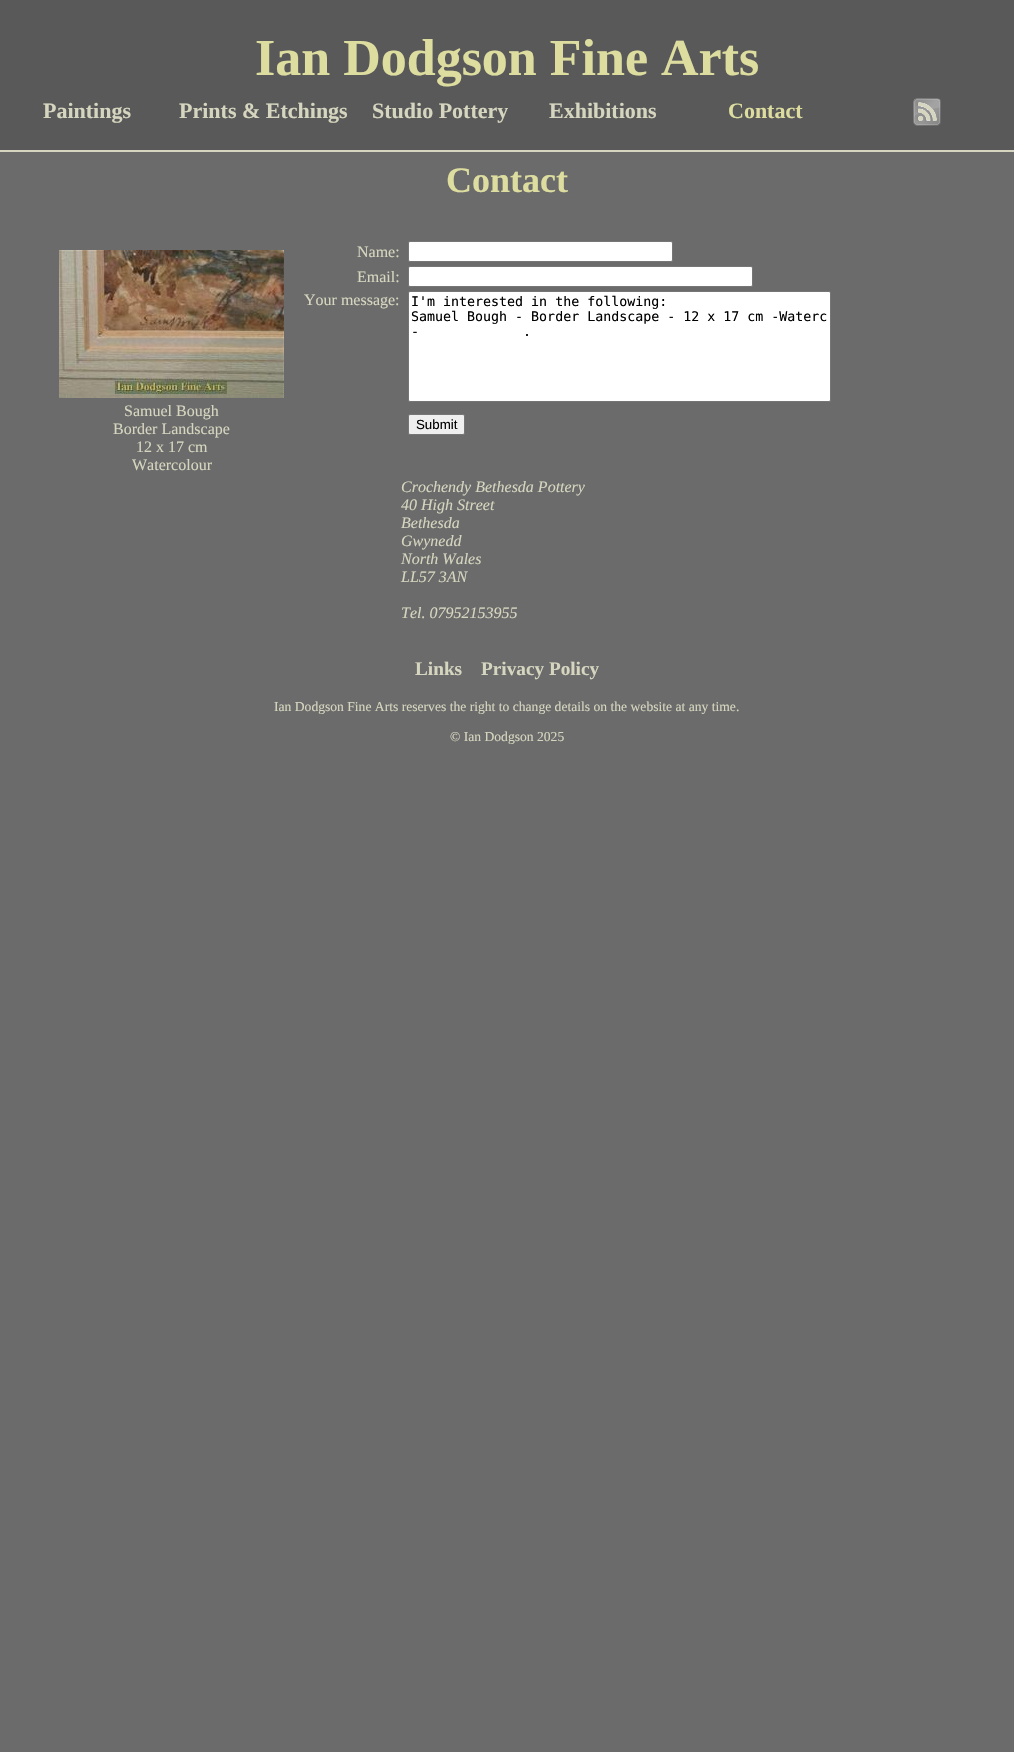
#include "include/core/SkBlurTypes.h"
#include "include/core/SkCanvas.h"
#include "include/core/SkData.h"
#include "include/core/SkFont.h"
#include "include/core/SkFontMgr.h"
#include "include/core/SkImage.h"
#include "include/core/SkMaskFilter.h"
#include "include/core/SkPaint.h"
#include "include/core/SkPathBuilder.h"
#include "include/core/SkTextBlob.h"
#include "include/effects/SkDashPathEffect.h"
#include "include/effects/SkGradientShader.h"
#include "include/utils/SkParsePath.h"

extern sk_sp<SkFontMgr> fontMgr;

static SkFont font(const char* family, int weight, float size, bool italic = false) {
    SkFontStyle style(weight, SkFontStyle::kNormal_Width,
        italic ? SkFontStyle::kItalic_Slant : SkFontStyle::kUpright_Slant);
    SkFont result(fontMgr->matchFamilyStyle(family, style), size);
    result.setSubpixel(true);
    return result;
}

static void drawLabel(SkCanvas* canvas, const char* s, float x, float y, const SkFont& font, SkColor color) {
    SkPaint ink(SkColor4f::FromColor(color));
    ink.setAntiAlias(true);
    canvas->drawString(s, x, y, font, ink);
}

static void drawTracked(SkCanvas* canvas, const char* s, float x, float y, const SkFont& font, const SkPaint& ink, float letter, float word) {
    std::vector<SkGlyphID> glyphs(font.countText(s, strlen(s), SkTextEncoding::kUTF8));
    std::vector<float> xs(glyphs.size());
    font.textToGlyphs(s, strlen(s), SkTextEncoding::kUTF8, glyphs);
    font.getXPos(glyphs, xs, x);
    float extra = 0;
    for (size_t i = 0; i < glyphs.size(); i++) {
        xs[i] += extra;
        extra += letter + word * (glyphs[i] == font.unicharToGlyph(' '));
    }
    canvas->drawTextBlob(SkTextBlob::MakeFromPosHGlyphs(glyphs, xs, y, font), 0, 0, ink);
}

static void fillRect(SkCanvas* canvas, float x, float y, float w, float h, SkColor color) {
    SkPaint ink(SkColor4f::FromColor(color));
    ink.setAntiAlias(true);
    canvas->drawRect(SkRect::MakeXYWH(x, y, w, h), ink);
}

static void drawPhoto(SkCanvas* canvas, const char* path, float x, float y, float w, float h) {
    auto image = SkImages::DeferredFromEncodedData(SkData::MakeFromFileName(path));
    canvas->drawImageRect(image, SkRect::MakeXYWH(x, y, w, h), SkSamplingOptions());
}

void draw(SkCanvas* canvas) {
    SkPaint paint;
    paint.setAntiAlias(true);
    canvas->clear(0xFF6B6B6B);
    fillRect(canvas, 0, 0, 1014, 150, 0xFF595959);
    fillRect(canvas, 0, 150, 1014, 2, 0xFFD6D6C0);
    SkFont font1 = font("Liberation Serif", 700, 52);
    drawLabel(canvas, "Ian Dodgson Fine Arts", 255, 75, font1, 0xFFDDDDA0);
    SkFont font2 = font("Liberation Serif", 700, 22);
    drawLabel(canvas, "Paintings", 43, 118, font2, 0xFFD6D6C0);
    drawLabel(canvas, "Prints & Etchings", 179, 118, font2, 0xFFD6D6C0);
    drawLabel(canvas, "Studio Pottery", 372, 118, font2, 0xFFD6D6C0);
    drawLabel(canvas, "Exhibitions", 549, 118, font2, 0xFFD6D6C0);
    drawLabel(canvas, "Contact", 728, 118, font2, 0xFFDDDDA0);
    drawPhoto(canvas, "assets/img1.png", 913, 98, 28, 28);
    SkFont font3 = font("Liberation Serif", 700, 36);
    drawLabel(canvas, "Contact", 446, 192, font3, 0xFFDDDDA0);
    drawPhoto(canvas, "assets/img2.png", 59, 250, 225, 148);
    SkFont font4 = font("Liberation Serif", 400, 16);
    drawLabel(canvas, "Samuel Bough", 124, 416, font4, 0xFFD6D6C0);
    drawLabel(canvas, "Border Landscape", 113, 434, font4, 0xFFD6D6C0);
    drawLabel(canvas, "12 x 17 cm", 136, 452, font4, 0xFFD6D6C0);
    drawLabel(canvas, "Watercolour", 132, 470, font4, 0xFFD6D6C0);
    drawLabel(canvas, "Name:", 357, 257, font4, 0xFFD6D6C0);
    paint.setColor(0xFFFFFFFF);
    canvas->drawRoundRect(SkRect::MakeXYWH(408.5f, 241.5f, 264, 20), 1.5f, 1.5f, paint);
    paint.setStroke(true);
    paint.setStrokeWidth(1);
    paint.setColor(0xFF767676);
    canvas->drawRoundRect(SkRect::MakeXYWH(408.5f, 241.5f, 264, 20), 1.5f, 1.5f, paint);
    drawLabel(canvas, "Email:", 357, 282, font4, 0xFFD6D6C0);
    paint.setStroke(false);
    paint.setColor(0xFFFFFFFF);
    canvas->drawRoundRect(SkRect::MakeXYWH(408.5f, 266.5f, 344, 20), 1.5f, 1.5f, paint);
    paint.setStroke(true);
    paint.setColor(0xFF767676);
    canvas->drawRoundRect(SkRect::MakeXYWH(408.5f, 266.5f, 344, 20), 1.5f, 1.5f, paint);
    drawLabel(canvas, "Your message:", 304, 305, font4, 0xFFD6D6C0);
    paint.setStroke(false);
    paint.setColor(0xFFFFFFFF);
    canvas->drawRoundRect(SkRect::MakeXYWH(408.5f, 291.5f, 422, 110), 1.5f, 1.5f, paint);
    paint.setStroke(true);
    paint.setColor(0xFF767676);
    canvas->drawRoundRect(SkRect::MakeXYWH(408.5f, 291.5f, 422, 110), 1.5f, 1.5f, paint);
    SkFont font5 = font("DejaVu Sans Mono", 400, 13.3f);
    drawLabel(canvas, "I'm interested in the following:", 411, 306, font5, 0xFF000000);
    drawLabel(canvas, "Samuel Bough - Border Landscape - 12 x 17 cm -Waterc", 411, 321, font5, 0xFF000000);
    paint.setStroke(false);
    paint.setColor(0xFF000000);
    drawTracked(canvas, "- .", 411, 336, font5, paint, 0, 96);
    paint.setColor(0xFFEFEFEF);
    canvas->drawRoundRect(SkRect::MakeXYWH(408.5f, 414.5f, 56, 20), 1.5f, 1.5f, paint);
    paint.setStroke(true);
    paint.setColor(0xFF767676);
    canvas->drawRoundRect(SkRect::MakeXYWH(408.5f, 414.5f, 56, 20), 1.5f, 1.5f, paint);
    SkFont font6 = font("Liberation Sans", 400, 13.3f);
    drawLabel(canvas, "Submit", 416, 429, font6, 0xFF000000);
    SkFont font7 = font("Liberation Serif", 400, 16, true);
    drawLabel(canvas, "Crochendy Bethesda Pottery", 401, 492, font7, 0xFFD6D6C0);
    drawLabel(canvas, "40 High Street", 401, 510, font7, 0xFFD6D6C0);
    drawLabel(canvas, "Bethesda", 401, 528, font7, 0xFFD6D6C0);
    drawLabel(canvas, "Gwynedd", 401, 546, font7, 0xFFD6D6C0);
    drawLabel(canvas, "North Wales", 401, 564, font7, 0xFFD6D6C0);
    drawLabel(canvas, "LL57 3AN", 401, 582, font7, 0xFFD6D6C0);
    drawLabel(canvas, "Tel. 07952153955", 401, 618, font7, 0xFFD6D6C0);
    SkFont font8 = font("Liberation Serif", 700, 19.25f);
    drawLabel(canvas, "Links", 415, 675, font8, 0xFFD6D6C0);
    drawLabel(canvas, "Privacy Policy", 481, 675, font8, 0xFFD6D6C0);
    SkFont font9 = font("Liberation Serif", 400, 13.6f);
    drawLabel(canvas, "Ian Dodgson Fine Arts reserves the right to change details on the website at any time.", 274, 711, font9, 0xFFD6D6C0);
    drawLabel(canvas, "© Ian Dodgson 2025", 450, 741, font9, 0xFFD6D6C0);
}
